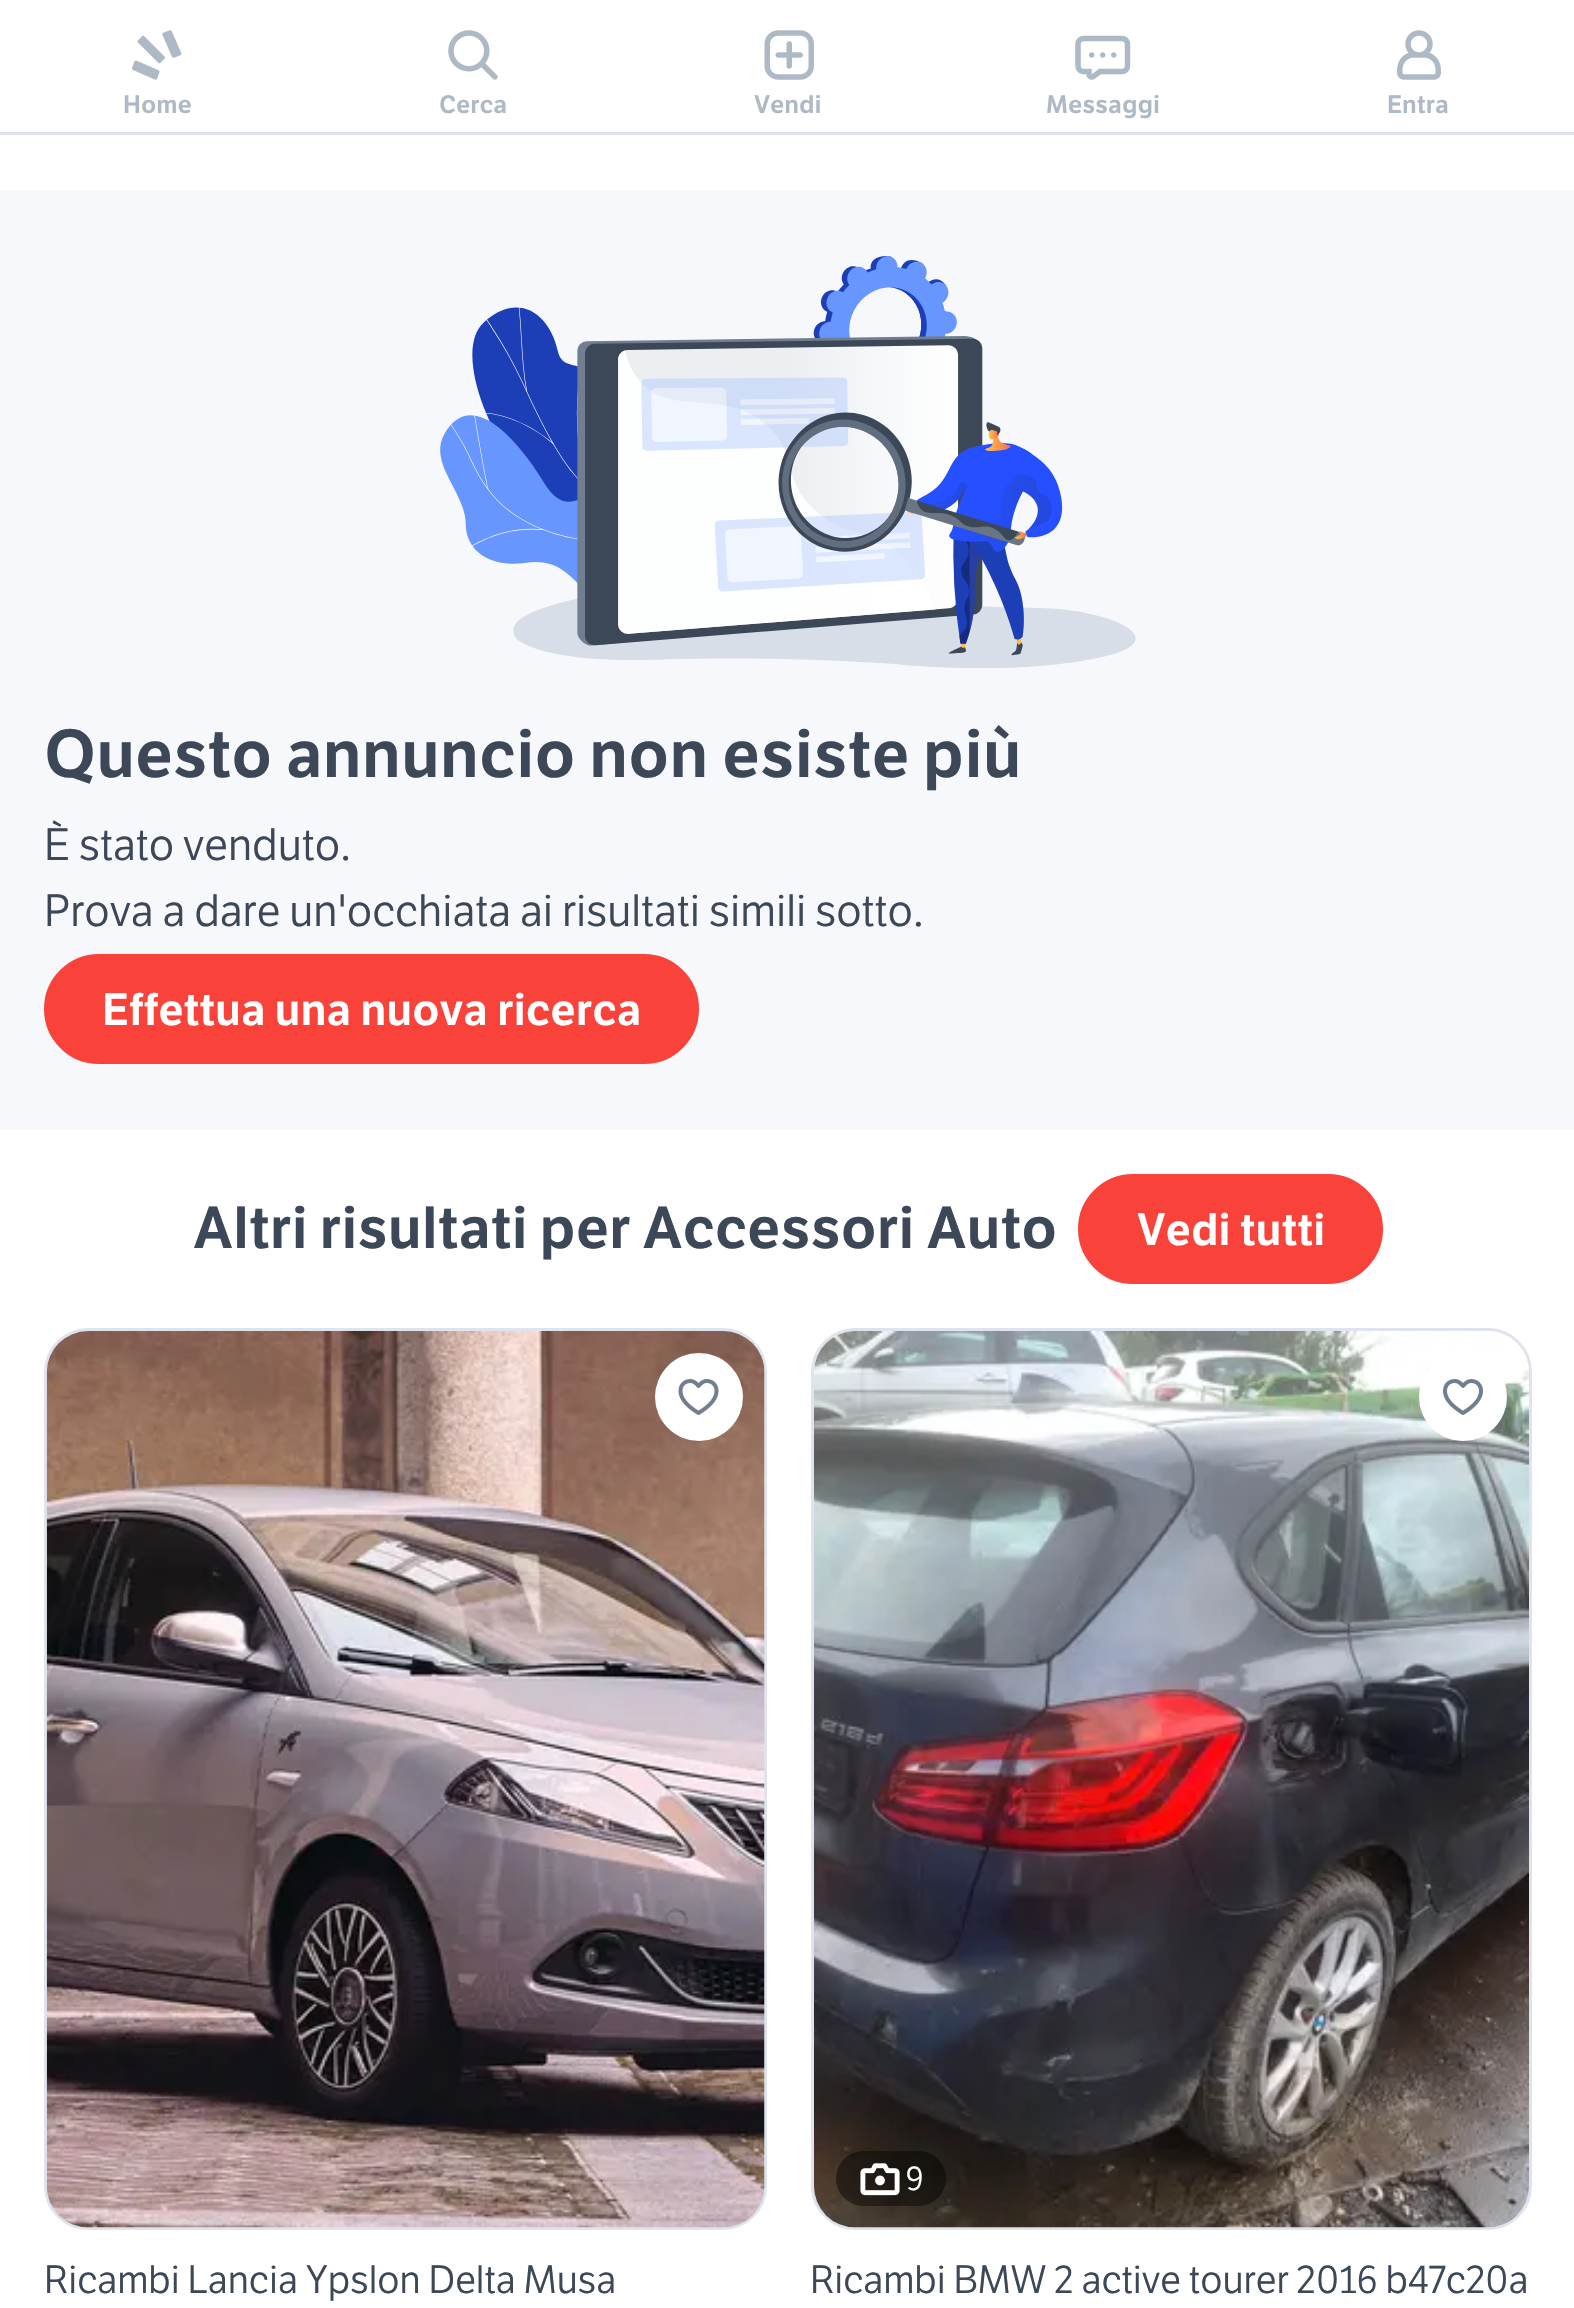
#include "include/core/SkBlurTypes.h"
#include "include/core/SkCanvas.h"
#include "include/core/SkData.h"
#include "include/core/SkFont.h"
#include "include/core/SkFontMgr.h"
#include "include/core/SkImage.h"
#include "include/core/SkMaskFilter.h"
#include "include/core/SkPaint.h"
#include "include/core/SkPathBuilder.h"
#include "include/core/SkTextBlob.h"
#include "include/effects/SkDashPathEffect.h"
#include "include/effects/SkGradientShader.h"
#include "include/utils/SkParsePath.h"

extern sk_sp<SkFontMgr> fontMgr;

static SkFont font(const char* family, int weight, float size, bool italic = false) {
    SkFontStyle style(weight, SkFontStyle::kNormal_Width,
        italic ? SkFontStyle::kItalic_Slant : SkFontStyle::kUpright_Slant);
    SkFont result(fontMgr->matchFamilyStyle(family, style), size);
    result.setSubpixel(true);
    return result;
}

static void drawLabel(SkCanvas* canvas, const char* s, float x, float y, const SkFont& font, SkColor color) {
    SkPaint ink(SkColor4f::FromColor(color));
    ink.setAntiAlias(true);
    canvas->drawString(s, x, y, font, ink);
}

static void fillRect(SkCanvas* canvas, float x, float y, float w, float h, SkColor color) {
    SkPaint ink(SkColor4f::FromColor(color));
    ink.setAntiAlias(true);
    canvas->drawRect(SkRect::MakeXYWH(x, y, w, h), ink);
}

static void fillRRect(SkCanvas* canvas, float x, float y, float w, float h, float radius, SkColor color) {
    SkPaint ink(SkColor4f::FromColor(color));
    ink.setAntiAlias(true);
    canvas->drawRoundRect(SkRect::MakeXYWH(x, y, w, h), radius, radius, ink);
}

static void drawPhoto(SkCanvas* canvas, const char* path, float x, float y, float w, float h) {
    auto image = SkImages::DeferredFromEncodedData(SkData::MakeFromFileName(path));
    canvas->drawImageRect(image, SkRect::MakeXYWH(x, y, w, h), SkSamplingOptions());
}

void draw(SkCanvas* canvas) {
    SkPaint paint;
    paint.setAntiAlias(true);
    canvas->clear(0xFFFFFFFF);
    fillRect(canvas, 0, 132, 1574, 3, 0xFFDFE3ED);
    drawPhoto(canvas, "assets/img1.png", 132, 30, 50, 50);
    SkFont font1 = font("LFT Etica", 600, 24.75f);
    drawLabel(canvas, "Home", 123, 113, font1, 0xFFAEB9C6);
    drawPhoto(canvas, "assets/img2.png", 448, 30, 50, 50);
    drawLabel(canvas, "Cerca", 439, 113, font1, 0xFFAEB9C6);
    drawPhoto(canvas, "assets/img3.png", 764, 30, 50, 50);
    drawLabel(canvas, "Vendi", 754, 113, font1, 0xFFAEB9C6);
    drawPhoto(canvas, "assets/img4.png", 1075, 35, 56, 45);
    drawLabel(canvas, "Messaggi", 1046, 113, font1, 0xFFAEB9C6);
    drawPhoto(canvas, "assets/img5.png", 1397, 30, 44, 50);
    drawLabel(canvas, "Entra", 1387, 113, font1, 0xFFAEB9C6);
    fillRect(canvas, 0, 190, 1574, 940, 0xFFF7F8FB);
    drawPhoto(canvas, "assets/img6.png", 440, 256, 696, 412);
    SkFont font2 = font("LFT Etica", 600, 66);
    drawLabel(canvas, "Questo annuncio non esiste più", 44, 777, font2, 0xFF3C4858);
    SkFont font3 = font("LFT Etica", 400, 44);
    drawLabel(canvas, "È stato venduto.", 44, 860, font3, 0xFF3C4858);
    drawLabel(canvas, "Prova a dare un'occhiata ai risultati simili sotto.", 44, 926, font3, 0xFF3C4858);
    paint.setColor(0xFFF9423A);
    canvas->drawRoundRect(SkRect::MakeXYWH(45.5f, 955.5f, 652, 107), 53.5f, 53.5f, paint);
    paint.setStroke(true);
    paint.setStrokeWidth(3);
    canvas->drawRoundRect(SkRect::MakeXYWH(45.5f, 955.5f, 652, 107), 53.5f, 53.5f, paint);
    SkFont font4 = font("LFT Etica", 600, 44);
    drawLabel(canvas, "Effettua una nuova ricerca", 102, 1025, font4, 0xFFFFFFFF);
    SkFont font5 = font("LFT Etica", 600, 57.75f);
    drawLabel(canvas, "Altri risultati per Accessori Auto", 193, 1248, font5, 0xFF3C4858);
    paint.setStroke(false);
    canvas->drawRoundRect(SkRect::MakeXYWH(1079.5f, 1175.5f, 302, 107), 53.5f, 53.5f, paint);
    paint.setStroke(true);
    canvas->drawRoundRect(SkRect::MakeXYWH(1079.5f, 1175.5f, 302, 107), 53.5f, 53.5f, paint);
    drawLabel(canvas, "Vedi tutti", 1137, 1245, font4, 0xFFFFFFFF);
    paint.setStroke(false);
    paint.setColor(0xFFF7F8FB);
    canvas->drawRoundRect(SkRect::MakeXYWH(45.5f, 1329.5f, 720, 899), 42.5f, 42.5f, paint);
    paint.setStroke(true);
    paint.setColor(0xFFDFE3ED);
    canvas->drawRoundRect(SkRect::MakeXYWH(45.5f, 1329.5f, 720, 899), 42.5f, 42.5f, paint);
    drawPhoto(canvas, "assets/img7.png", 46, 1331, 719, 897);
    paint.setStroke(false);
    paint.setColor(0xFFFFFFFF);
    canvas->drawCircle(699, 1397, 44, paint);
    drawPhoto(canvas, "assets/img8.png", 678, 1379, 41, 36);
    SkFont font6 = font("LFT Etica", 400, 38.5f);
    drawLabel(canvas, "Ricambi Lancia Ypslon Delta Musa", 44, 2293, font6, 0xFF3C4858);
    paint.setColor(0xFFF7F8FB);
    canvas->drawRoundRect(SkRect::MakeXYWH(812.5f, 1329.5f, 718, 899), 42.5f, 42.5f, paint);
    paint.setStroke(true);
    paint.setColor(0xFFDFE3ED);
    canvas->drawRoundRect(SkRect::MakeXYWH(812.5f, 1329.5f, 718, 899), 42.5f, 42.5f, paint);
    drawPhoto(canvas, "assets/img9.png", 814, 1331, 715, 897);
    paint.setStroke(false);
    paint.setColor(0xFFFFFFFF);
    canvas->drawCircle(1463, 1397, 44, paint);
    drawPhoto(canvas, "assets/img10.png", 1443, 1379, 40, 36);
    fillRRect(canvas, 836, 2151, 110, 55, 27.5f, 0x73000000);
    drawPhoto(canvas, "assets/img11.png", 860, 2163, 40, 33);
    SkFont font7 = font("LFT Etica", 400, 33);
    drawLabel(canvas, "9", 906, 2190, font7, 0xFFFFFFFF);
    drawLabel(canvas, "Ricambi BMW 2 active tourer 2016 b47c20a", 810, 2293, font6, 0xFF3C4858);
}
